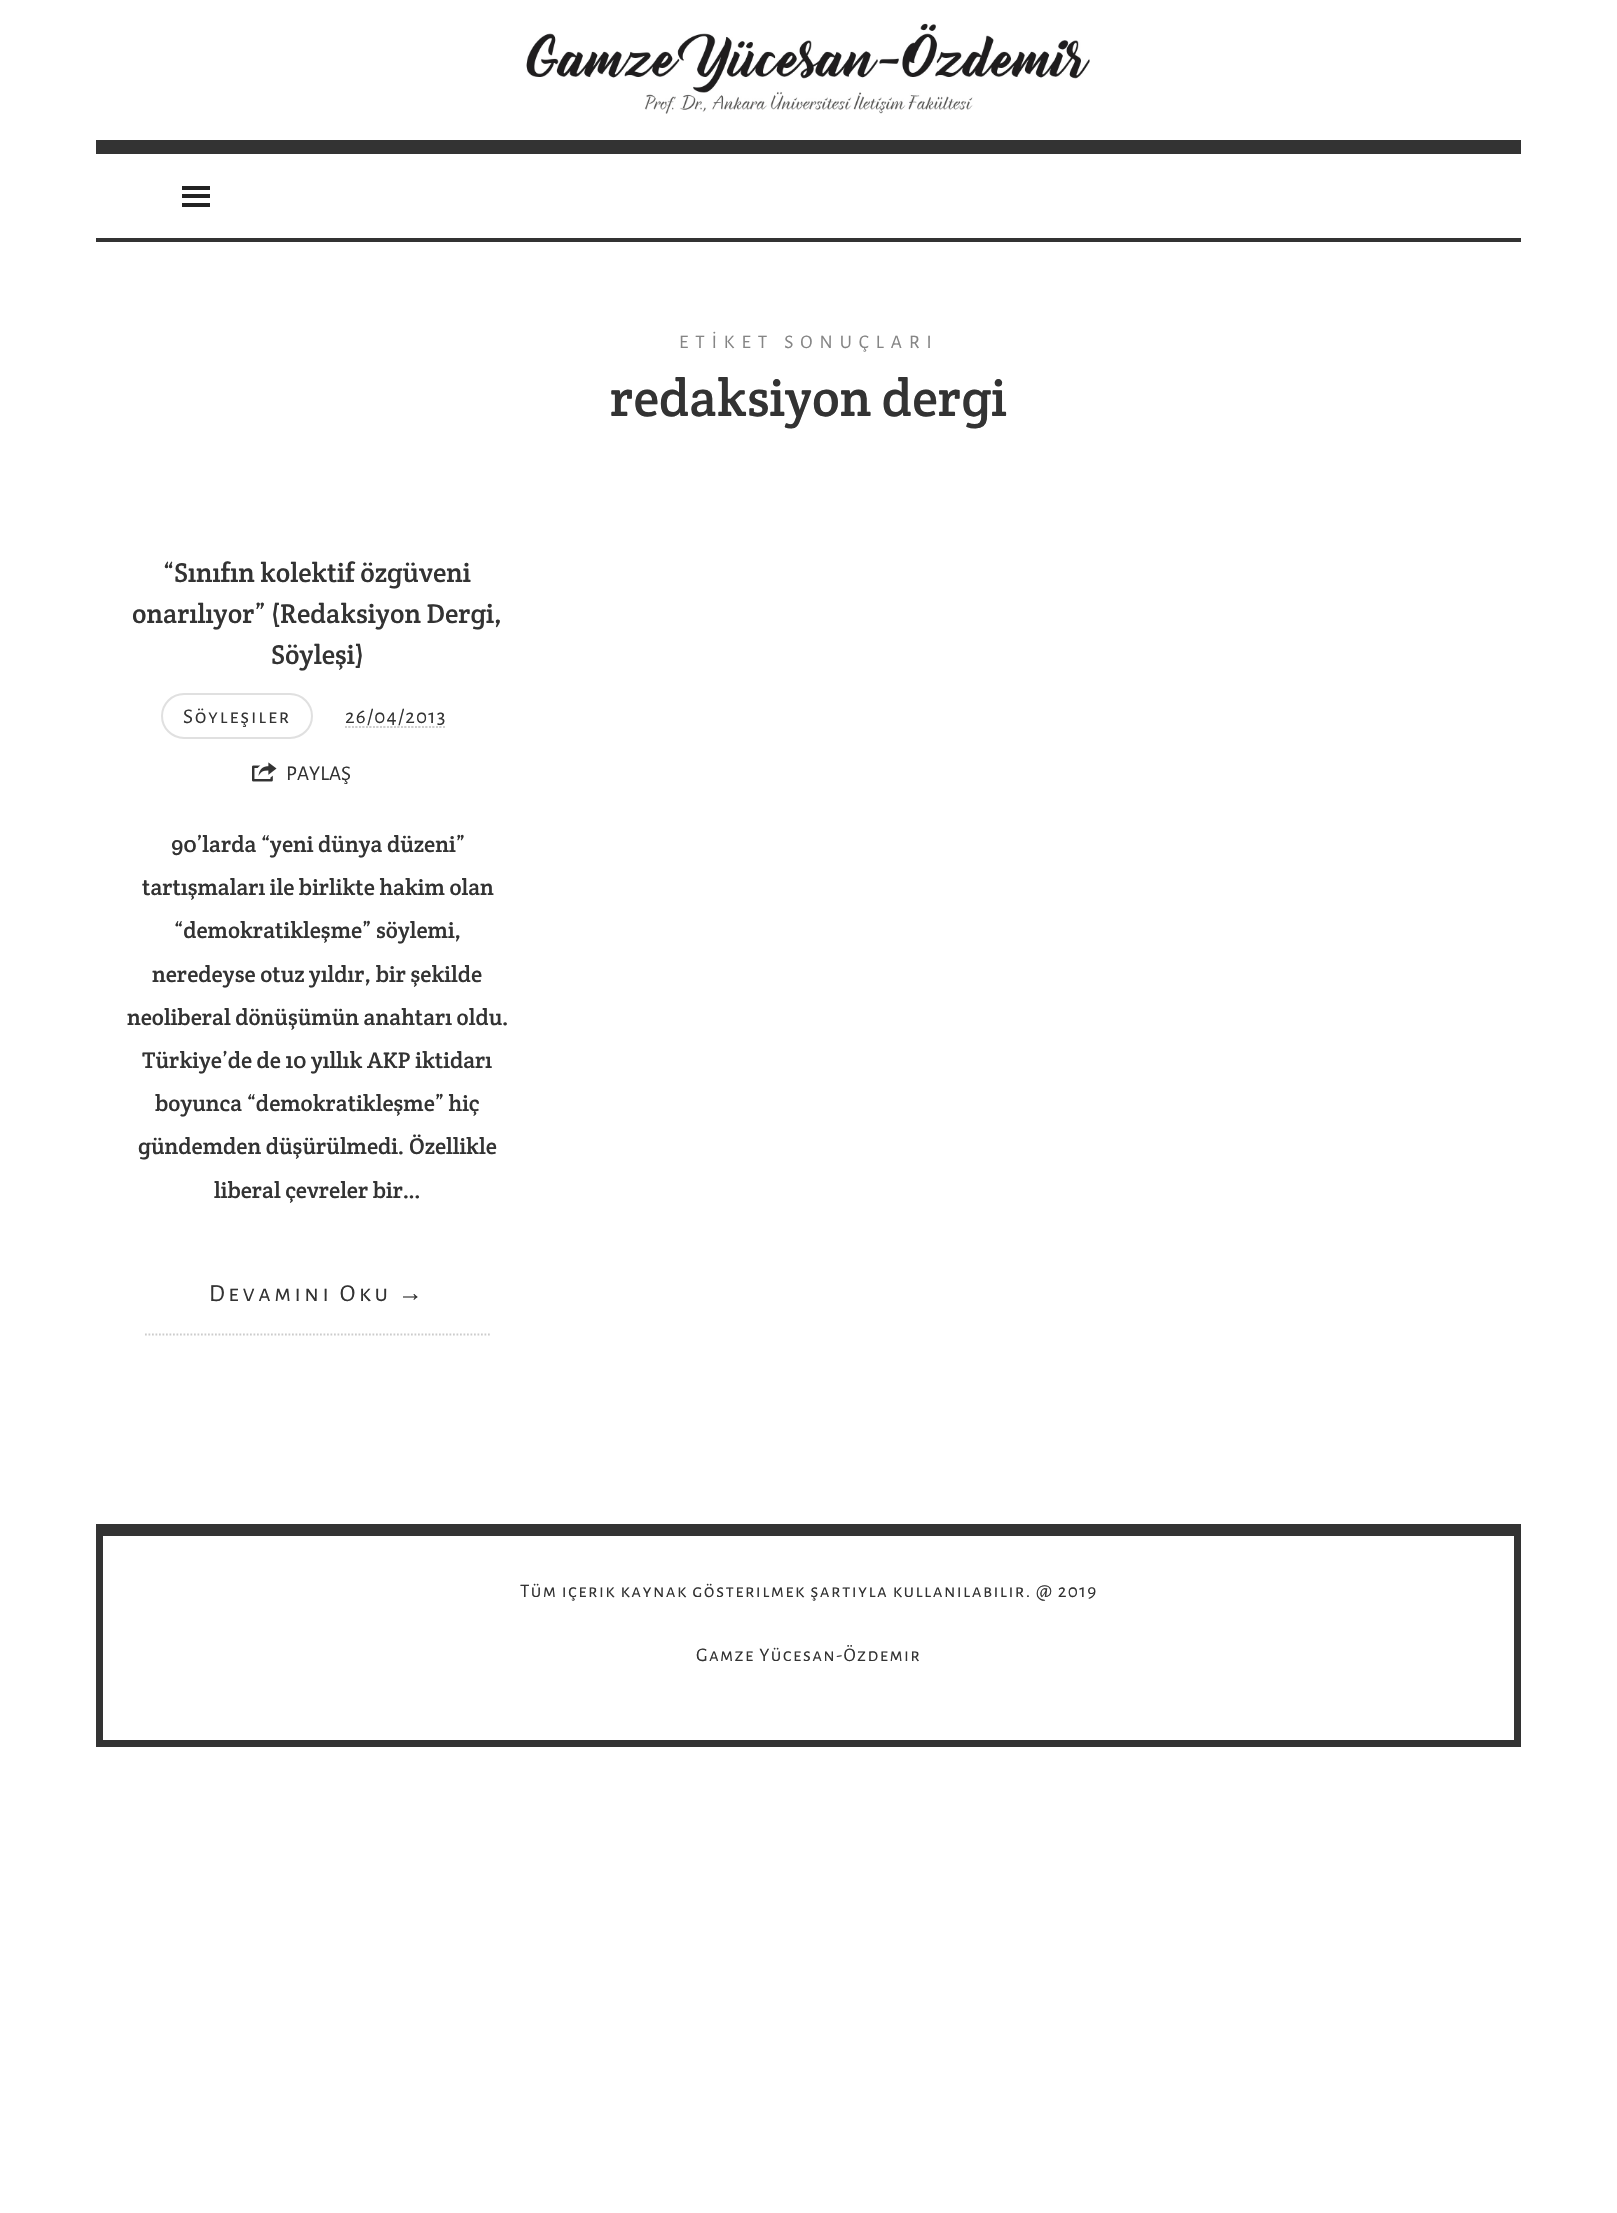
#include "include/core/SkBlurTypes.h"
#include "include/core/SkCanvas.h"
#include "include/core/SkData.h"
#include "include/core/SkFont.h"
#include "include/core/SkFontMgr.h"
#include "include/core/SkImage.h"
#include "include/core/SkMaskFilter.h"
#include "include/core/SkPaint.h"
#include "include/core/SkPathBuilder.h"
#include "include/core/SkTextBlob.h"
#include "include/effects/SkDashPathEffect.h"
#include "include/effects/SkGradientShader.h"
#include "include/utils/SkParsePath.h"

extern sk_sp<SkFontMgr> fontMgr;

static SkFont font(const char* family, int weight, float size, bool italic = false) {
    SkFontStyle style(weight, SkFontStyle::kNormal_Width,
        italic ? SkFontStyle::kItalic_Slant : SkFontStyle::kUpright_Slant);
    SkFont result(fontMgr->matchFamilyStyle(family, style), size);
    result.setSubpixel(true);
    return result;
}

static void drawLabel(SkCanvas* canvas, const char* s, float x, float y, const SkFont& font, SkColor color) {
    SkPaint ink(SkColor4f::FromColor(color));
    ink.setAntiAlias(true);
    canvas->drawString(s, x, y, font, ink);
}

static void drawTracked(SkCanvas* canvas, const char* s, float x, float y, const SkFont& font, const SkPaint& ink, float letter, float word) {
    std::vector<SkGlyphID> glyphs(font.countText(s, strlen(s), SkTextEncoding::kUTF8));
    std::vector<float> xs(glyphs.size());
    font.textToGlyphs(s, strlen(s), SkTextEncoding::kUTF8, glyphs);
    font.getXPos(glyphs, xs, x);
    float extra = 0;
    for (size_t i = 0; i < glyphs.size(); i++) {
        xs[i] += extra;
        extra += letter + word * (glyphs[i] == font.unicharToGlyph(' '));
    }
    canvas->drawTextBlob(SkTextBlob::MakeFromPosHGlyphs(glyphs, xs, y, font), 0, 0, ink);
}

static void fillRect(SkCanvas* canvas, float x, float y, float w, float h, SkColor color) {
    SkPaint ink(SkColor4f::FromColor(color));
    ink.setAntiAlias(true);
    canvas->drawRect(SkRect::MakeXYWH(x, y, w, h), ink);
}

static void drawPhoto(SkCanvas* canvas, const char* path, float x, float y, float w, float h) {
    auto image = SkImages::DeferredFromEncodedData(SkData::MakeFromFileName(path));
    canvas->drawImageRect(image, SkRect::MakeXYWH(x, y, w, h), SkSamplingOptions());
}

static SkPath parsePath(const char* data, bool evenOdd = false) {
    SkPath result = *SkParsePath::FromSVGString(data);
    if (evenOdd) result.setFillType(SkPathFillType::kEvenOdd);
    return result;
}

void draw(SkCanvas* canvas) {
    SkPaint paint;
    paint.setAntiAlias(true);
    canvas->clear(0xFFFFFFFF);
    drawPhoto(canvas, "assets/img1.png", 526, 23, 564, 91);
    fillRect(canvas, 96, 140, 1425, 14, 0xFF333333);
    fillRect(canvas, 96, 238, 1425, 4, 0xFF333333);
    fillRect(canvas, 182, 194, 28, 4, 0xFF222222);
    fillRect(canvas, 182, 186, 28, 4, 0xFF222222);
    fillRect(canvas, 182, 203, 28, 4, 0xFF222222);
    SkFont font1 = font("Alegreya Sans SC", 400, 19.25f);
    paint.setColor(0xFF858585);
    drawTracked(canvas, "ETİKET SONUÇLARI", 679, 348, font1, paint, 7, 0);
    SkFont font2 = font("Crete Round", 400, 52.25f);
    drawLabel(canvas, "redaksiyon dergi", 610, 416, font2, 0xFF333333);
    SkFont font3 = font("Crete Round", 400, 27.25f);
    drawLabel(canvas, "“Sınıfın kolektif özgüveni", 163, 582, font3, 0xFF333333);
    drawLabel(canvas, "onarılıyor” (Redaksiyon Dergi,", 132, 623, font3, 0xFF333333);
    drawLabel(canvas, "Söyleşi)", 271, 664, font3, 0xFF333333);
    paint.setStroke(true);
    paint.setStrokeWidth(2);
    paint.setColor(0xFFE0E0E0);
    canvas->drawRoundRect(SkRect::MakeXYWH(162, 694, 150, 44), 22, 22, paint);
    SkFont font4 = font("Alegreya Sans SC", 400, 21);
    paint.setStroke(false);
    paint.setColor(0xFF333333);
    drawTracked(canvas, "Söyleşiler", 183, 723, font4, paint, 1.75f, 0);
    drawTracked(canvas, "26/04/2013", 345, 723, font4, paint, 1.25f, 0);
    paint.setStroke(true);
    paint.setStrokeWidth(1.8f);
    paint.setColor(0xFFCCCCCC);
    paint.setPathEffect(SkDashPathEffect::Make({{1.75f, 1.75f}}, 0));
    canvas->drawPath(parsePath("M345 727H446"), paint);
    paint.setPathEffect(nullptr);
    paint.setPathEffect(SkDashPathEffect::Make({{1.75f, 1.75f}}, 0));
    canvas->drawPath(parsePath("M345 727H446"), paint);
    paint.setPathEffect(nullptr);
    drawPhoto(canvas, "assets/img2.png", 252, 762, 25, 20);
    drawLabel(canvas, "PAYLAŞ", 286, 780, font4, 0xFF333333);
    SkFont font5 = font("Crete Round", 400, 22.75f);
    drawLabel(canvas, "90’larda “yeni dünya düzeni”", 171, 852, font5, 0xFF333333);
    drawLabel(canvas, "tartışmaları ile birlikte hakim olan", 142, 895, font5, 0xFF333333);
    drawLabel(canvas, "“demokratikleşme” söylemi,", 174, 938, font5, 0xFF333333);
    drawLabel(canvas, "neredeyse otuz yıldır, bir şekilde", 152, 982, font5, 0xFF333333);
    drawLabel(canvas, "neoliberal dönüşümün anahtarı oldu.", 127, 1025, font5, 0xFF333333);
    drawLabel(canvas, "Türkiye’de de 10 yıllık AKP iktidarı", 142, 1068, font5, 0xFF333333);
    drawLabel(canvas, "boyunca “demokratikleşme” hiç", 155, 1111, font5, 0xFF333333);
    drawLabel(canvas, "gündemden düşürülmedi. Özellikle", 138, 1154, font5, 0xFF333333);
    drawLabel(canvas, "liberal çevreler bir…", 214, 1198, font5, 0xFF333333);
    paint.setPathEffect(SkDashPathEffect::Make({{1.75f, 1.75f}}, 0));
    canvas->drawPath(parsePath("M145 1334.5H490"), paint);
    paint.setPathEffect(nullptr);
    SkFont font6 = font("Alegreya Sans SC", 400, 24.5f);
    paint.setStroke(false);
    paint.setColor(0xFF333333);
    drawTracked(canvas, "Devamını Oku", 209, 1301, font6, paint, 3.5f, 0);
    SkFont font7 = font("Liberation Serif", 400, 24.5f);
    drawTracked(canvas, "→", 398, 1301, font7, paint, 3.5f, 0);
    paint.setStroke(true);
    paint.setStrokeWidth(7);
    canvas->drawRect(SkRect::MakeXYWH(99.5f, 1527.5f, 1418, 216), paint);
    fillRect(canvas, 103, 1531, 1411, 5, 0xFF333333);
    paint.setStroke(false);
    drawTracked(canvas, "Tüm içerik kaynak gösterilmek şartıyla kullanılabilir. @ 2019", 520, 1597, font1, paint, 1.35f, 0);
    drawTracked(canvas, "Gamze Yücesan-Özdemir", 696, 1661, font1, paint, 1.35f, 0);
}
